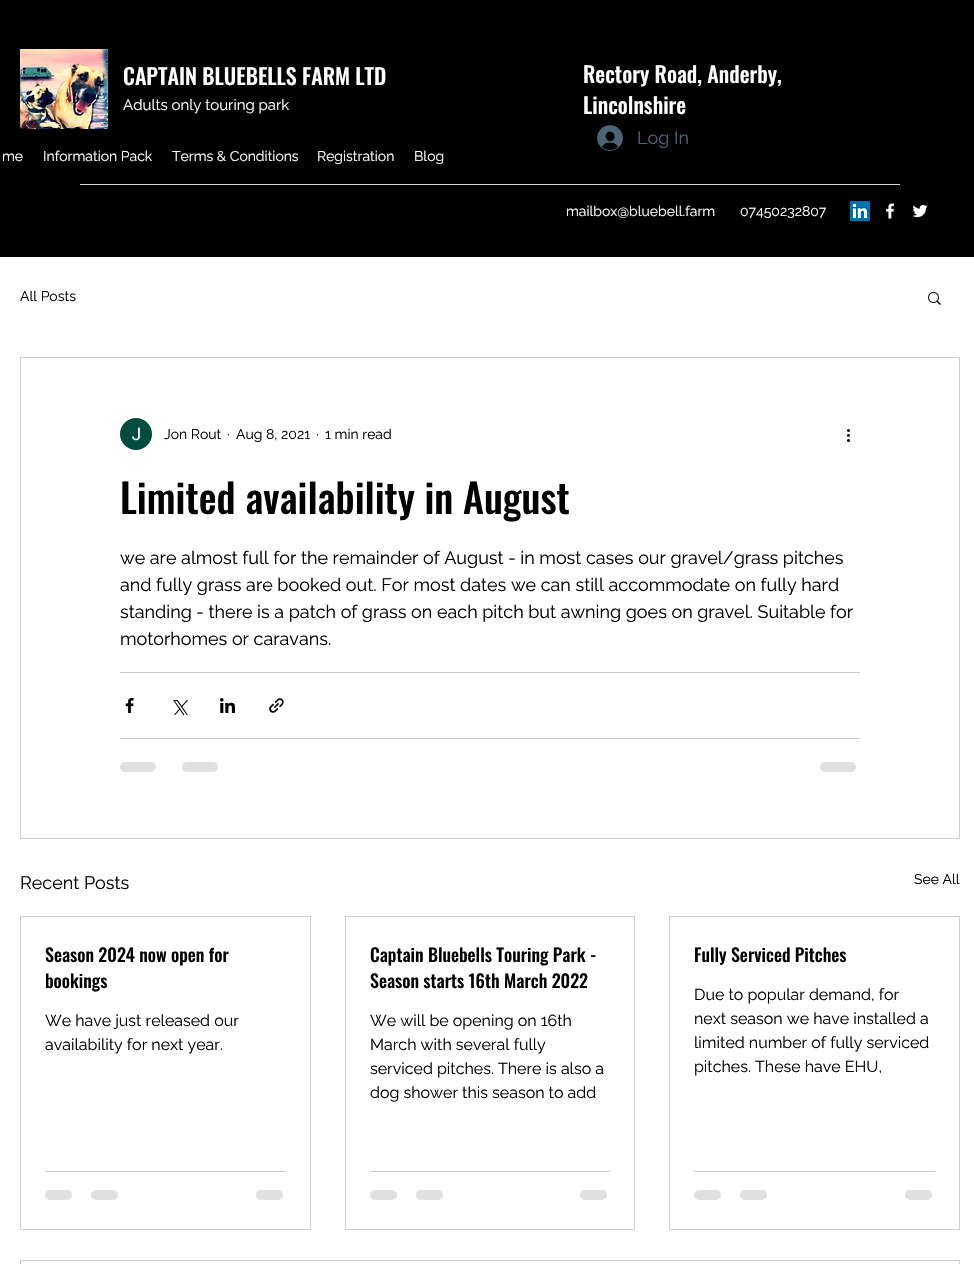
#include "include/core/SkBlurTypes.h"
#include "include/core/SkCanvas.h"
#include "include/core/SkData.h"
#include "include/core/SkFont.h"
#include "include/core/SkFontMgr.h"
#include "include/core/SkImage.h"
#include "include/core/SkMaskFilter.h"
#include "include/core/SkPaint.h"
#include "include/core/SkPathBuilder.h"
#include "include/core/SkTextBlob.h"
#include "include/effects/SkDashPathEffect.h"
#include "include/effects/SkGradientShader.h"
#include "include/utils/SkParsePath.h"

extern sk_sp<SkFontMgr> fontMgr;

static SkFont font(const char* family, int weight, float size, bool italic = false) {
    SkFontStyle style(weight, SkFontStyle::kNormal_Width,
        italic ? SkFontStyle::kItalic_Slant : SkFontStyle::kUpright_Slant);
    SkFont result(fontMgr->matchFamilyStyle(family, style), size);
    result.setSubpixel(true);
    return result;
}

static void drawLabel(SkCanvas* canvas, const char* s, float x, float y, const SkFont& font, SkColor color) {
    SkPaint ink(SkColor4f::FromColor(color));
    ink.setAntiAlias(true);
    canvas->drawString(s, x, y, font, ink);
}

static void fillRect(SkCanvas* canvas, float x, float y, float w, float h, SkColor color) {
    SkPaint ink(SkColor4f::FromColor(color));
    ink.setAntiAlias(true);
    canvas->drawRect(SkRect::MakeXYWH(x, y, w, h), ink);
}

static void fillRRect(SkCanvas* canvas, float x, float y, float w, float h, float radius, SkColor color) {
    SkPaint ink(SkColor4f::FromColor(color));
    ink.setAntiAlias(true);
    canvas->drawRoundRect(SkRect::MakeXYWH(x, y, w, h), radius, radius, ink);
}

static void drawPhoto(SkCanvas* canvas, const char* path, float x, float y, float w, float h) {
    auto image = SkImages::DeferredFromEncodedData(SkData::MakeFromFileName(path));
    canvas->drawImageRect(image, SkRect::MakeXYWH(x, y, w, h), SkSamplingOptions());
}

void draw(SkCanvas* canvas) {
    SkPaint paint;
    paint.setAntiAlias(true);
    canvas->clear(0xFFFFFFFF);
    fillRect(canvas, 0, 0, 974, 257, 0xFF000000);
    drawPhoto(canvas, "assets/img1.png", 20, 49, 88, 80);
    SkFont font1 = font("Oswald", 500, 22);
    drawLabel(canvas, "CAPTAIN BLUEBELLS FARM LTD", 123, 85, font1, 0xFFFFFFFF);
    SkFont font2 = font("Raleway", 400, 15);
    drawLabel(canvas, "Adults only touring park", 123, 110, font2, 0xFFFFFFFF);
    drawLabel(canvas, "Rectory Road, Anderby,", 583, 83, font1, 0xFFFFFFFF);
    drawLabel(canvas, "Lincolnshire", 583, 114, font1, 0xFFFFFFFF);
    drawPhoto(canvas, "assets/img2.png", 597, 125, 26, 26);
    SkFont font3 = font("Raleway", 400, 18);
    drawLabel(canvas, "Log In", 637, 144, font3, 0xFF4C6474);
    SkFont font4 = font("Raleway", 400, 14);
    drawLabel(canvas, "me", 2, 161, font4, 0xFFFFFFFF);
    drawLabel(canvas, "Information Pack", 43, 161, font4, 0xFFFFFFFF);
    drawLabel(canvas, "Terms & Conditions", 172, 161, font4, 0xFFFFFFFF);
    drawLabel(canvas, "Registration", 317, 161, font4, 0xFFFFFFFF);
    drawLabel(canvas, "Blog", 414, 161, font4, 0xFFFFFFFF);
    fillRect(canvas, 80, 184, 820, 1, 0xFFD9D9D9);
    drawLabel(canvas, "mailbox@bluebell.farm", 566, 216, font4, 0xFFFFFFFF);
    drawLabel(canvas, "07450232807", 740, 216, font4, 0xFFFFFFFF);
    drawPhoto(canvas, "assets/img3.png", 850, 201, 20, 20);
    drawPhoto(canvas, "assets/img4.png", 886, 203, 9, 16);
    drawPhoto(canvas, "assets/img5.png", 912, 204, 16, 14);
    drawLabel(canvas, "All Posts", 20, 301, font4, 0xFF000000);
    drawPhoto(canvas, "assets/img6.png", 928, 292, 13, 13);
    paint.setStroke(true);
    paint.setStrokeWidth(1);
    paint.setColor(0xFFCFCFCF);
    canvas->drawRect(SkRect::MakeXYWH(20.5f, 357.5f, 939, 481), paint);
    drawPhoto(canvas, "assets/img7.png", 120, 418, 32, 32);
    drawLabel(canvas, "Jon Rout", 164, 439, font4, 0xFF000000);
    drawLabel(canvas, "·", 227, 439, font4, 0xFF000000);
    drawLabel(canvas, "Aug 8, 2021", 236, 439, font4, 0xFF000000);
    drawLabel(canvas, "·", 316, 439, font4, 0xFF000000);
    drawLabel(canvas, "1 min read", 325, 439, font4, 0xFF000000);
    drawPhoto(canvas, "assets/img8.png", 847, 429, 3, 13);
    SkFont font5 = font("Oswald", 500, 40);
    drawLabel(canvas, "Limited availability in August", 120, 514, font5, 0xFF000000);
    drawLabel(canvas, "we are almost full for the remainder of August - in most cases our gravel/grass pitches", 120, 564, font3, 0xFF000000);
    drawLabel(canvas, "and fully grass are booked out. For most dates we can still accommodate on fully hard", 120, 591, font3, 0xFF000000);
    drawLabel(canvas, "standing - there is a patch of grass on each pitch but awning goes on gravel. Suitable for", 120, 618, font3, 0xFF000000);
    drawLabel(canvas, "motorhomes or caravans.", 120, 645, font3, 0xFF000000);
    fillRect(canvas, 120, 672, 740, 1, 0xFFCCCCCC);
    drawPhoto(canvas, "assets/img9.png", 125, 698, 9, 15);
    drawPhoto(canvas, "assets/img10.png", 173, 700, 15, 15);
    drawPhoto(canvas, "assets/img11.png", 220, 698, 15, 15);
    drawPhoto(canvas, "assets/img12.png", 269, 698, 15, 15);
    fillRect(canvas, 120, 738, 740, 1, 0xFFCCCCCC);
    fillRRect(canvas, 120, 762, 36, 10, 5, 0xFFE0E0E0);
    fillRRect(canvas, 182, 762, 36, 10, 5, 0xFFE0E0E0);
    fillRRect(canvas, 820, 762, 36, 10, 5, 0xFFE0E0E0);
    drawLabel(canvas, "Recent Posts", 20, 889, font3, 0xFF000000);
    drawLabel(canvas, "See All", 914, 884, font4, 0xFF000000);
    canvas->drawRect(SkRect::MakeXYWH(20.5f, 916.5f, 290, 313), paint);
    SkFont font6 = font("Oswald", 500, 18);
    drawLabel(canvas, "Season 2024 now open for", 45, 962, font6, 0xFF000000);
    drawLabel(canvas, "bookings", 45, 988, font6, 0xFF000000);
    SkFont font7 = font("Raleway", 400, 16);
    drawLabel(canvas, "We have just released our", 45, 1026, font7, 0xFF000000);
    drawLabel(canvas, "availability for next year.", 45, 1050, font7, 0xFF000000);
    fillRect(canvas, 45, 1171, 241, 1, 0xFFCCCCCC);
    fillRRect(canvas, 45, 1190, 27, 10, 5, 0xFFE0E0E0);
    fillRRect(canvas, 91, 1190, 27, 10, 5, 0xFFE0E0E0);
    fillRRect(canvas, 256, 1190, 27, 10, 5, 0xFFE0E0E0);
    canvas->drawRect(SkRect::MakeXYWH(345.5f, 916.5f, 289, 313), paint);
    drawLabel(canvas, "Captain Bluebells Touring Park -", 370, 962, font6, 0xFF000000);
    drawLabel(canvas, "Season starts 16th March 2022", 370, 988, font6, 0xFF000000);
    drawLabel(canvas, "We will be opening on 16th", 370, 1026, font7, 0xFF000000);
    drawLabel(canvas, "March with several fully", 370, 1050, font7, 0xFF000000);
    drawLabel(canvas, "serviced pitches. There is also a", 370, 1074, font7, 0xFF000000);
    drawLabel(canvas, "dog shower this season to add", 370, 1098, font7, 0xFF000000);
    fillRect(canvas, 370, 1171, 240, 1, 0xFFCCCCCC);
    fillRRect(canvas, 370, 1190, 27, 10, 5, 0xFFE0E0E0);
    fillRRect(canvas, 416, 1190, 27, 10, 5, 0xFFE0E0E0);
    fillRRect(canvas, 580, 1190, 27, 10, 5, 0xFFE0E0E0);
    canvas->drawRect(SkRect::MakeXYWH(669.5f, 916.5f, 290, 313), paint);
    drawLabel(canvas, "Fully Serviced Pitches", 694, 962, font6, 0xFF000000);
    drawLabel(canvas, "Due to popular demand, for", 694, 1000, font7, 0xFF000000);
    drawLabel(canvas, "next season we have installed a", 694, 1024, font7, 0xFF000000);
    drawLabel(canvas, "limited number of fully serviced", 694, 1048, font7, 0xFF000000);
    drawLabel(canvas, "pitches. These have EHU,", 694, 1072, font7, 0xFF000000);
    fillRect(canvas, 694, 1171, 241, 1, 0xFFCCCCCC);
    fillRRect(canvas, 694, 1190, 27, 10, 5, 0xFFE0E0E0);
    fillRRect(canvas, 740, 1190, 27, 10, 5, 0xFFE0E0E0);
    fillRRect(canvas, 905, 1190, 27, 10, 5, 0xFFE0E0E0);
    canvas->drawRect(SkRect::MakeXYWH(20.5f, 1260.5f, 939, 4), paint);
}
